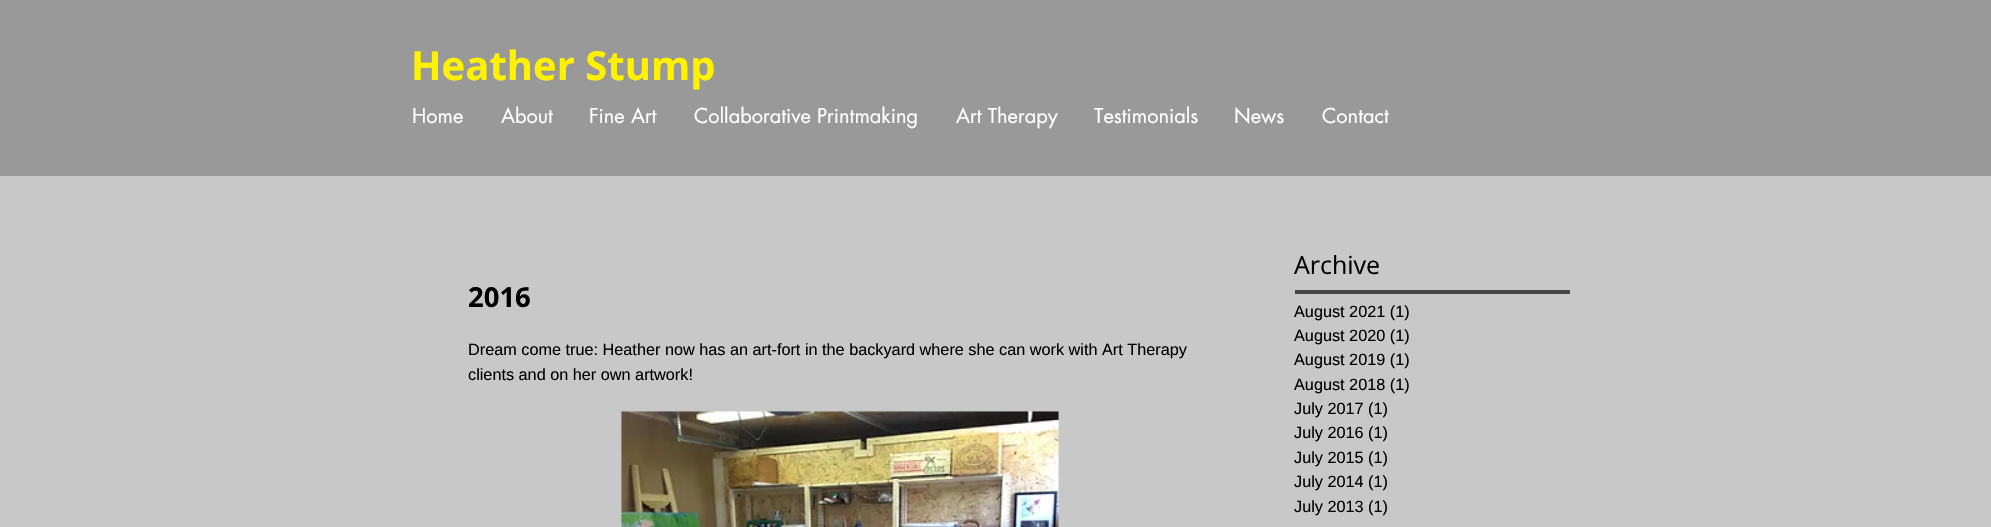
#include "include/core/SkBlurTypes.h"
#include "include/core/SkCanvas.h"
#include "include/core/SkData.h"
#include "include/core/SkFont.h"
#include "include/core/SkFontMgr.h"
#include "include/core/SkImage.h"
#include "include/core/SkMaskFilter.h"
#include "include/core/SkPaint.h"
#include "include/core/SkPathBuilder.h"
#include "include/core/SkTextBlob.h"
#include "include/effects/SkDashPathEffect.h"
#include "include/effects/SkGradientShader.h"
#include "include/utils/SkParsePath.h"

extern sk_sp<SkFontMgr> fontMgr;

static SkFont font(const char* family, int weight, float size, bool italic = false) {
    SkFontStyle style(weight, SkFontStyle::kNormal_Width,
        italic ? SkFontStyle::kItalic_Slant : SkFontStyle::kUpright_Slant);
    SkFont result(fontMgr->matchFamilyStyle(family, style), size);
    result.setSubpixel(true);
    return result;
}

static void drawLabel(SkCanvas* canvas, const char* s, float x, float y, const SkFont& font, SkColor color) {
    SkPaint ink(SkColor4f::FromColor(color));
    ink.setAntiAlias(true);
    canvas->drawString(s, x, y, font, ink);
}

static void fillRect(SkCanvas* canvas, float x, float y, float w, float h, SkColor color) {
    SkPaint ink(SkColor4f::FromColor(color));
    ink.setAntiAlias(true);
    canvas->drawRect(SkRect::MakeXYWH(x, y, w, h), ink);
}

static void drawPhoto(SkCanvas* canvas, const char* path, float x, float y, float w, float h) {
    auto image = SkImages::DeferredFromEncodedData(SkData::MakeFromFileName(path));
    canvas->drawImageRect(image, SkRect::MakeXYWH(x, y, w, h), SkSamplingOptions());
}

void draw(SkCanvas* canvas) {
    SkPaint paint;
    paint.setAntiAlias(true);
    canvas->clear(0xFF999999);
    SkFont font1 = font("Open Sans", 700, 40);
    drawLabel(canvas, "Heather Stump", 411, 80, font1, 0xFFFFF200);
    SkFont font2 = font("futura", 400, 20);
    drawLabel(canvas, "Home", 412, 123, font2, 0xFFFFFFFF);
    drawLabel(canvas, "About", 501, 123, font2, 0xFFFFFFFF);
    drawLabel(canvas, "Fine Art", 589, 123, font2, 0xFFFFFFFF);
    drawLabel(canvas, "Collaborative Printmaking", 694, 123, font2, 0xFFFFFFFF);
    drawLabel(canvas, "Art Therapy", 956, 123, font2, 0xFFFFFFFF);
    drawLabel(canvas, "Testimonials", 1094, 123, font2, 0xFFFFFFFF);
    drawLabel(canvas, "News", 1234, 123, font2, 0xFFFFFFFF);
    drawLabel(canvas, "Contact", 1322, 123, font2, 0xFFFFFFFF);
    fillRect(canvas, 0, 176, 1991, 351, 0xFFC8C8C8);
    SkFont font3 = font("Open Sans", 400, 25);
    drawLabel(canvas, "Archive", 1294, 274, font3, 0xFF000000);
    SkFont font4 = font("Open Sans", 700, 27.5f);
    drawLabel(canvas, "2016", 468, 307, font4, 0xFF000000);
    SkFont font5 = font("Liberation Sans", 400, 16.25f);
    drawLabel(canvas, "Dream come true: Heather now has an art-fort in the backyard where she can work with Art Therapy", 468, 355, font5, 0xFF000000);
    drawLabel(canvas, "clients and on her own artwork!", 468, 380, font5, 0xFF000000);
    drawPhoto(canvas, "assets/img1.png", 621, 411, 438, 116);
    fillRect(canvas, 1295, 290, 275, 4, 0xFF464646);
    drawLabel(canvas, "August 2021 (1)", 1294, 317, font5, 0xFF000000);
    drawLabel(canvas, "August 2020 (1)", 1294, 341, font5, 0xFF000000);
    drawLabel(canvas, "August 2019 (1)", 1294, 365, font5, 0xFF000000);
    drawLabel(canvas, "August 2018 (1)", 1294, 390, font5, 0xFF000000);
    drawLabel(canvas, "July 2017 (1)", 1294, 414, font5, 0xFF000000);
    drawLabel(canvas, "July 2016 (1)", 1294, 438, font5, 0xFF000000);
    drawLabel(canvas, "July 2015 (1)", 1294, 463, font5, 0xFF000000);
    drawLabel(canvas, "July 2014 (1)", 1294, 487, font5, 0xFF000000);
    drawLabel(canvas, "July 2013 (1)", 1294, 512, font5, 0xFF000000);
}
